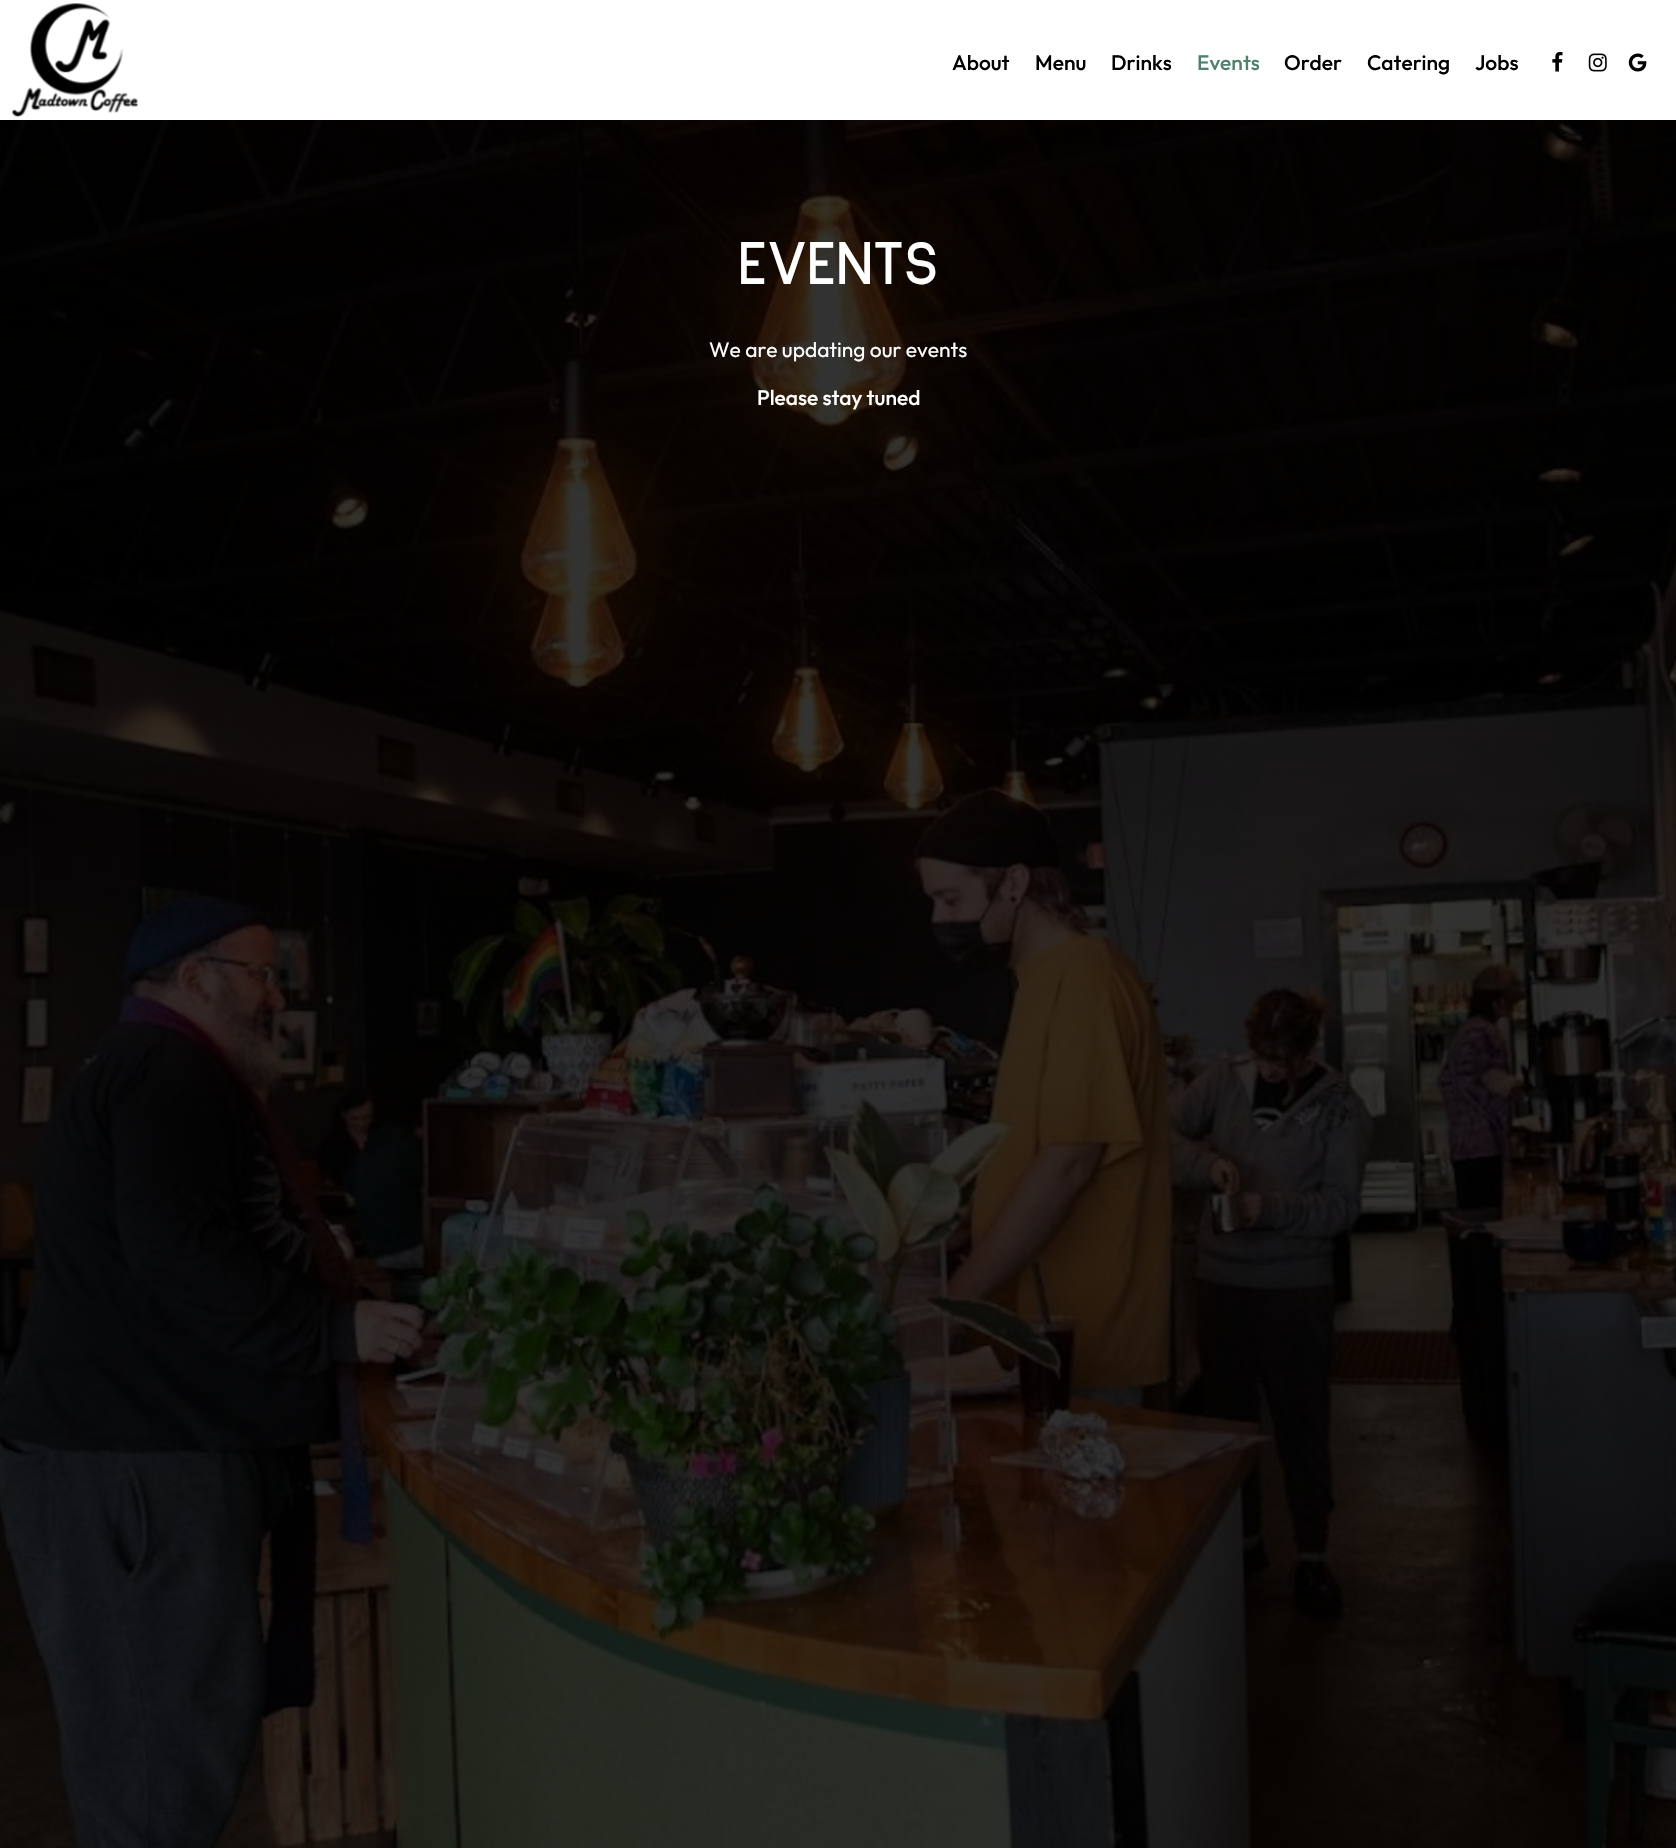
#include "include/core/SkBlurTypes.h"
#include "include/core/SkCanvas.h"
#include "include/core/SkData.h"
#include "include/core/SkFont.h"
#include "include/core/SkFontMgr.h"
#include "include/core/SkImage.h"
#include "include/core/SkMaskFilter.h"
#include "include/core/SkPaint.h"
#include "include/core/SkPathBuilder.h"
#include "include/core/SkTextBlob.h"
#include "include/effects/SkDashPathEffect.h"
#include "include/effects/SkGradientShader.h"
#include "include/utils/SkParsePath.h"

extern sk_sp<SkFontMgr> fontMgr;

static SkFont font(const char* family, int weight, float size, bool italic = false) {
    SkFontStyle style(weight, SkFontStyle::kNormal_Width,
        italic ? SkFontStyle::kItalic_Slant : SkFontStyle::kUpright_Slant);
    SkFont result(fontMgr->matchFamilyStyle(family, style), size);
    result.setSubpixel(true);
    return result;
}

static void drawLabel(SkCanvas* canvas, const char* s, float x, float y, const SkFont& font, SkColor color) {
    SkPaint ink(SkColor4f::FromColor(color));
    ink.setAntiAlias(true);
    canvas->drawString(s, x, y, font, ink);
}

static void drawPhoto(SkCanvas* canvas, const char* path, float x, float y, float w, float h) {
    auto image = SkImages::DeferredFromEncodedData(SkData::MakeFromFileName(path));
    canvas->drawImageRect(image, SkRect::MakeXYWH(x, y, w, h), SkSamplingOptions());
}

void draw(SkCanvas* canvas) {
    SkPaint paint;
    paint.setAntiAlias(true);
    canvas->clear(0xFFFFFFFF);
    drawPhoto(canvas, "assets/img1.png", 0, 120, 1676, 1728);
    drawPhoto(canvas, "assets/img2.png", 12, 3, 126, 114);
    SkFont font1 = font("Outfit", 500, 21);
    drawLabel(canvas, "About", 952, 70, font1, 0xFF000000);
    drawLabel(canvas, "Menu", 1035, 70, font1, 0xFF000000);
    drawLabel(canvas, "Drinks", 1111, 70, font1, 0xFF000000);
    drawLabel(canvas, "Events", 1197, 70, font1, 0xFF51806C);
    drawLabel(canvas, "Order", 1284, 70, font1, 0xFF000000);
    drawLabel(canvas, "Catering", 1367, 70, font1, 0xFF000000);
    drawLabel(canvas, "Jobs", 1475, 70, font1, 0xFF000000);
    drawPhoto(canvas, "assets/img3.png", 1552, 52, 11, 20);
    drawPhoto(canvas, "assets/img4.png", 1588, 53, 19, 19);
    drawPhoto(canvas, "assets/img5.png", 1628, 53, 19, 19);
    SkFont font2 = font("Sulphur Point", 700, 63);
    drawLabel(canvas, "EVENTS", 738, 284, font2, 0xFFFFFFFF);
    SkFont font3 = font("Outfit", 400, 21);
    drawLabel(canvas, "We are updating our events", 709, 357, font3, 0xFFFFFFFF);
    drawLabel(canvas, "Please stay tuned", 757, 405, font1, 0xFFFFFFFF);
}
